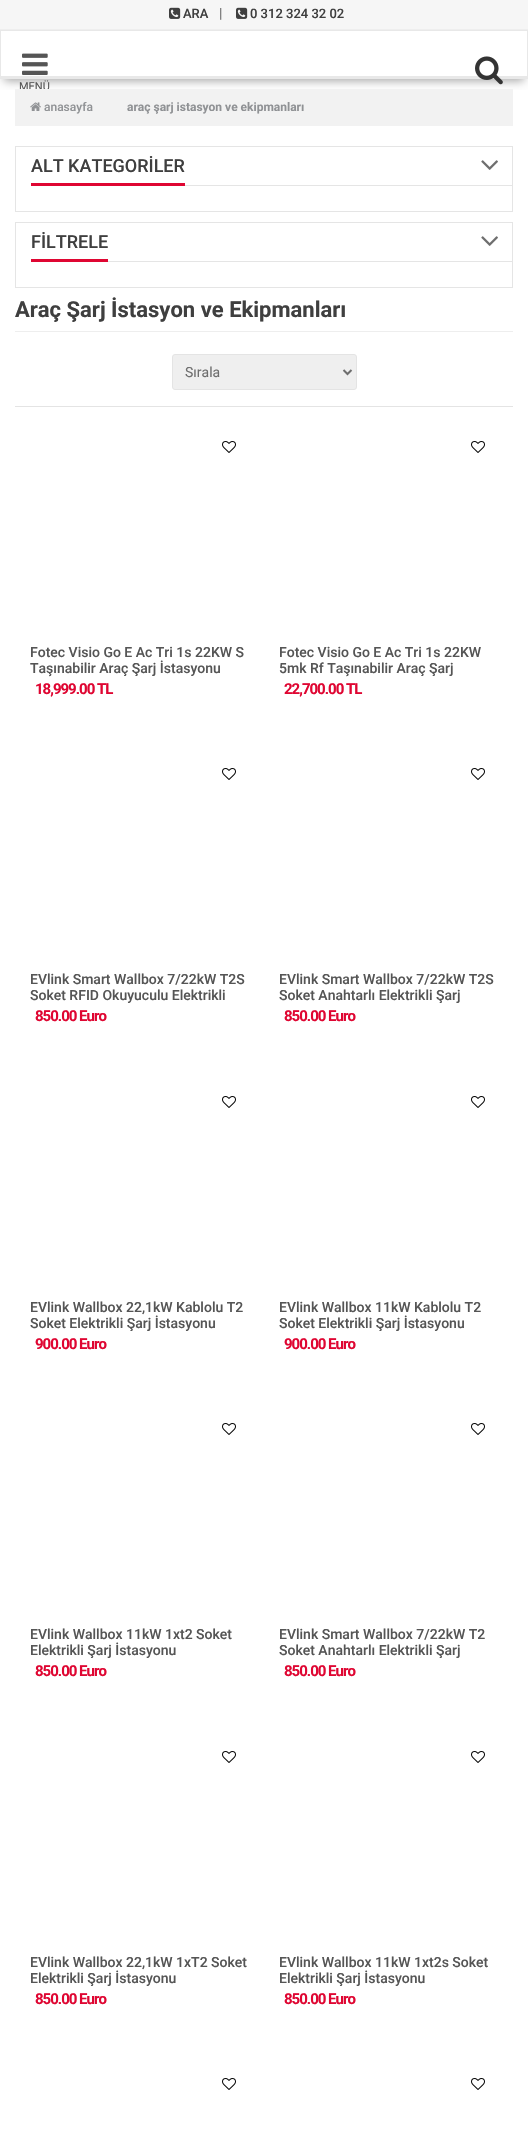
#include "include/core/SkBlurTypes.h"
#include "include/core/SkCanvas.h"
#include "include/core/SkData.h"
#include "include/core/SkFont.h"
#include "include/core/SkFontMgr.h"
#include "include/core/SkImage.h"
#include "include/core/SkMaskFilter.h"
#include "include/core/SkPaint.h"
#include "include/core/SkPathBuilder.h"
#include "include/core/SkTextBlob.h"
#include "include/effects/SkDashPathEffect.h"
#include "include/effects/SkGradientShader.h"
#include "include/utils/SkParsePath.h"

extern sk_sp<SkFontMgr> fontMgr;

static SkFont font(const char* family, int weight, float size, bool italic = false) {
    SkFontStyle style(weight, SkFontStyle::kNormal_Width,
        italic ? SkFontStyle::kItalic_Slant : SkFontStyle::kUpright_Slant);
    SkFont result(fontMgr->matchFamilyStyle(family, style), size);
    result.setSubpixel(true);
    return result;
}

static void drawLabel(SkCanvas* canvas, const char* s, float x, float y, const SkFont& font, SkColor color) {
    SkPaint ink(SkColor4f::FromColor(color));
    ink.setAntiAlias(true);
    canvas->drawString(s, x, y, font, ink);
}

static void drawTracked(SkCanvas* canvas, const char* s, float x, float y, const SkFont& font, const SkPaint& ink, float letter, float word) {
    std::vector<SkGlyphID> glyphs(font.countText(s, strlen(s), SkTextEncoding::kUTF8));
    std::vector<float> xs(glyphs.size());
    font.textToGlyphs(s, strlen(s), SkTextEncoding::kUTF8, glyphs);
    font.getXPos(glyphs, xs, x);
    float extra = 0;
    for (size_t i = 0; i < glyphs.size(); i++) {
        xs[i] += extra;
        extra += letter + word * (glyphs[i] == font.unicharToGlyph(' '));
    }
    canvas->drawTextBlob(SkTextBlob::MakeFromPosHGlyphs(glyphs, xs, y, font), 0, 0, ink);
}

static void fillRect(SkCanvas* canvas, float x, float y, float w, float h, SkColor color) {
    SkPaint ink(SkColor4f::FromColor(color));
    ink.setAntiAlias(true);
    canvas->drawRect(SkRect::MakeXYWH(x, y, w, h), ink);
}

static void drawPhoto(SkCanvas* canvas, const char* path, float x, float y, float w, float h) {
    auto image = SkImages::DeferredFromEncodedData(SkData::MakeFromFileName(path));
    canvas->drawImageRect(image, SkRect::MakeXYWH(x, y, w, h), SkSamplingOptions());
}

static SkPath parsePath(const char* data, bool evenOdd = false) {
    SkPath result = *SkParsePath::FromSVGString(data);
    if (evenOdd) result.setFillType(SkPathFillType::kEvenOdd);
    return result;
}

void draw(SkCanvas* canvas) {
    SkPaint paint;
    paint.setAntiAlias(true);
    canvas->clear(0xFFFFFFFF);
    fillRect(canvas, 0, 0, 528, 29, 0xFFF6F6F6);
    fillRect(canvas, 0, 29, 528, 1, 0xFFEEEEEE);
    drawPhoto(canvas, "assets/img1.png", 169, 7, 12, 12);
    SkFont font1 = font("Roboto", 500, 13);
    drawLabel(canvas, "ARA", 183, 18, font1, 0xFF3F3F3F);
    SkFont font2 = font("Roboto", 400, 14);
    drawLabel(canvas, "|", 219, 18, font2, 0xFF6E6E6E);
    drawPhoto(canvas, "assets/img1.png", 236, 7, 12, 12);
    drawLabel(canvas, "0 312 324 32 02", 250, 18, font1, 0xFF3F3F3F);
    canvas->save();
    canvas->clipRect(SkRect::MakeXYWH(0, 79, 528, 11));
    paint.setColor(0xFFA7A7A7);
    paint.setMaskFilter(SkMaskFilter::MakeBlur(kNormal_SkBlurStyle, 4.5f));
    canvas->drawRect(SkRect::MakeXYWH(4, 40, 520, 41), paint);
    paint.setMaskFilter(nullptr);
    canvas->restore();
    fillRect(canvas, 0, 30, 528, 1, 0xFFE8E8E8);
    fillRect(canvas, 527, 30, 1, 49, 0xFFE8E8E8);
    fillRect(canvas, 0, 76, 528, 3, 0xFFE8E8E8);
    fillRect(canvas, 0, 30, 1, 49, 0xFFE8E8E8);
    drawPhoto(canvas, "assets/img2.png", 22, 53, 26, 22);
    SkFont font3 = font("Roboto", 400, 11);
    drawLabel(canvas, "MENÜ", 19, 90, font3, 0xFF555555);
    drawPhoto(canvas, "assets/img3.png", 475, 56, 28, 29);
    fillRect(canvas, 15, 89, 498, 37, 0xFFF2F2F2);
    drawPhoto(canvas, "assets/img4.png", 30, 102, 11, 9);
    SkFont font4 = font("Roboto", 500, 12);
    drawLabel(canvas, "anasayfa", 44, 111, font4, 0xFF909295);
    SkFont font5 = font("Roboto", 700, 12);
    drawLabel(canvas, "araç şarj istasyon ve ekipmanları", 127, 111, font5, 0xFF909295);
    paint.setStroke(true);
    paint.setStrokeWidth(1);
    paint.setColor(0xFFE5E5E5);
    canvas->drawRect(SkRect::MakeXYWH(15.5f, 146.5f, 497, 65), paint);
    fillRect(canvas, 185, 185, 327, 1, 0xFFE5E5E5);
    SkFont font6 = font("Roboto", 500, 18);
    drawLabel(canvas, "ALT KATEGORİLER", 31, 172, font6, 0xFF3F3F3F);
    fillRect(canvas, 31, 183, 154, 3, 0xFFDF0632);
    drawPhoto(canvas, "assets/img5.png", 481, 160, 17, 10);
    canvas->drawRect(SkRect::MakeXYWH(15.5f, 222.5f, 497, 65), paint);
    fillRect(canvas, 108, 261, 404, 1, 0xFFE5E5E5);
    drawLabel(canvas, "FİLTRELE", 31, 248, font6, 0xFF3F3F3F);
    fillRect(canvas, 31, 259, 77, 3, 0xFFDF0632);
    drawPhoto(canvas, "assets/img5.png", 481, 236, 17, 10);
    fillRect(canvas, 15, 331, 498, 1, 0xFFEEEEEE);
    SkFont font7 = font("Roboto", 700, 22);
    drawLabel(canvas, "Araç Şarj İstasyon ve Ekipmanları", 15, 317, font7, 0xFF3F3F3F);
    paint.setStroke(false);
    paint.setColor(0xFFEFEFEF);
    canvas->drawRoundRect(SkRect::MakeXYWH(172.5f, 354.5f, 184, 35), 2.5f, 2.5f, paint);
    paint.setStroke(true);
    paint.setColor(0xFFE4E4E4);
    canvas->drawRoundRect(SkRect::MakeXYWH(172.5f, 354.5f, 184, 35), 2.5f, 2.5f, paint);
    paint.setStrokeWidth(2);
    paint.setColor(0xFF6E6E6E);
    canvas->drawPath(parsePath("M343.5 370L347.5 374L351.5 370"), paint);
    drawLabel(canvas, "Sırala", 185, 377, font2, 0xFF6E6E6E);
    fillRect(canvas, 15, 406, 498, 1, 0xFFE4E4E4);
    drawPhoto(canvas, "assets/img6.png", 222, 441, 14, 12);
    SkFont font8 = font("Roboto", 500, 14);
    drawLabel(canvas, "Fotec Visio Go E Ac Tri 1s 22KW S", 30, 657, font8, 0xFF555555);
    drawLabel(canvas, "Taşınabilir Araç Şarj İstasyonu", 30, 673, font8, 0xFF555555);
    SkFont font9 = font("Roboto", 700, 15);
    paint.setStroke(false);
    paint.setColor(0xFFDF0632);
    drawTracked(canvas, "18,999.00 TL", 35, 694, font9, paint, -1, 0);
    drawPhoto(canvas, "assets/img6.png", 471, 441, 14, 12);
    drawLabel(canvas, "Fotec Visio Go E Ac Tri 1s 22KW", 279, 657, font8, 0xFF555555);
    drawLabel(canvas, "5mk Rf Taşınabilir Araç Şarj", 279, 673, font8, 0xFF555555);
    drawTracked(canvas, "22,700.00 TL", 284, 694, font9, paint, -1, 0);
    drawPhoto(canvas, "assets/img6.png", 222, 768, 14, 12);
    drawLabel(canvas, "EVlink Smart Wallbox 7/22kW T2S", 30, 984, font8, 0xFF555555);
    drawLabel(canvas, "Soket RFID Okuyuculu Elektrikli", 30, 1000, font8, 0xFF555555);
    drawTracked(canvas, "850.00 Euro", 35, 1021, font9, paint, -1, 0);
    drawPhoto(canvas, "assets/img6.png", 471, 768, 14, 12);
    drawLabel(canvas, "EVlink Smart Wallbox 7/22kW T2S", 279, 984, font8, 0xFF555555);
    drawLabel(canvas, "Soket Anahtarlı Elektrikli Şarj", 279, 1000, font8, 0xFF555555);
    drawTracked(canvas, "850.00 Euro", 284, 1021, font9, paint, -1, 0);
    drawPhoto(canvas, "assets/img6.png", 222, 1096, 14, 12);
    drawLabel(canvas, "EVlink Wallbox 22,1kW Kablolu T2", 30, 1312, font8, 0xFF555555);
    drawLabel(canvas, "Soket Elektrikli Şarj İstasyonu", 30, 1328, font8, 0xFF555555);
    drawTracked(canvas, "900.00 Euro", 35, 1349, font9, paint, -1, 0);
    drawPhoto(canvas, "assets/img6.png", 471, 1096, 14, 12);
    drawLabel(canvas, "EVlink Wallbox 11kW Kablolu T2", 279, 1312, font8, 0xFF555555);
    drawLabel(canvas, "Soket Elektrikli Şarj İstasyonu", 279, 1328, font8, 0xFF555555);
    drawTracked(canvas, "900.00 Euro", 284, 1349, font9, paint, -1, 0);
    drawPhoto(canvas, "assets/img6.png", 222, 1423, 14, 12);
    drawLabel(canvas, "EVlink Wallbox 11kW 1xt2 Soket", 30, 1639, font8, 0xFF555555);
    drawLabel(canvas, "Elektrikli Şarj İstasyonu", 30, 1655, font8, 0xFF555555);
    drawTracked(canvas, "850.00 Euro", 35, 1676, font9, paint, -1, 0);
    drawPhoto(canvas, "assets/img6.png", 471, 1423, 14, 12);
    drawLabel(canvas, "EVlink Smart Wallbox 7/22kW T2", 279, 1639, font8, 0xFF555555);
    drawLabel(canvas, "Soket Anahtarlı Elektrikli Şarj", 279, 1655, font8, 0xFF555555);
    drawTracked(canvas, "850.00 Euro", 284, 1676, font9, paint, -1, 0);
    drawPhoto(canvas, "assets/img6.png", 222, 1751, 14, 12);
    drawLabel(canvas, "EVlink Wallbox 22,1kW 1xT2 Soket", 30, 1967, font8, 0xFF555555);
    drawLabel(canvas, "Elektrikli Şarj İstasyonu", 30, 1983, font8, 0xFF555555);
    drawTracked(canvas, "850.00 Euro", 35, 2004, font9, paint, -1, 0);
    drawPhoto(canvas, "assets/img6.png", 471, 1751, 14, 12);
    drawLabel(canvas, "EVlink Wallbox 11kW 1xt2s Soket", 279, 1967, font8, 0xFF555555);
    drawLabel(canvas, "Elektrikli Şarj İstasyonu", 279, 1983, font8, 0xFF555555);
    drawTracked(canvas, "850.00 Euro", 284, 2004, font9, paint, -1, 0);
    drawPhoto(canvas, "assets/img6.png", 222, 2078, 14, 12);
    drawPhoto(canvas, "assets/img6.png", 471, 2078, 14, 12);
}
